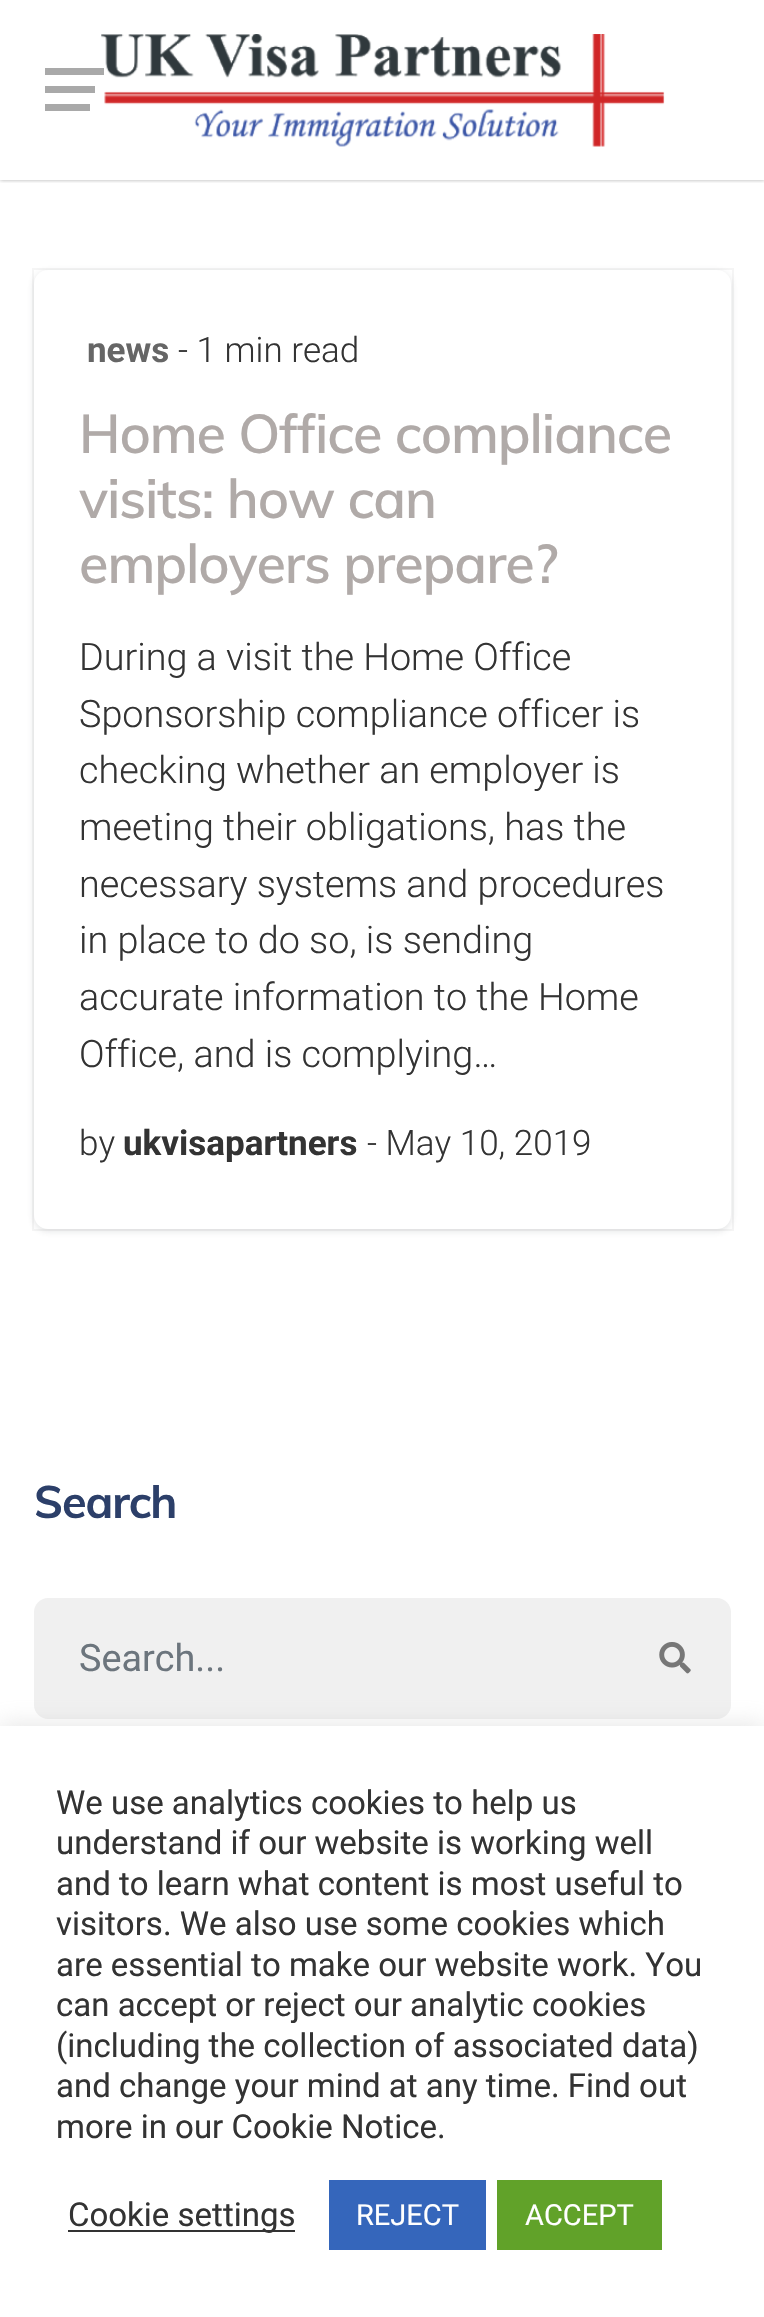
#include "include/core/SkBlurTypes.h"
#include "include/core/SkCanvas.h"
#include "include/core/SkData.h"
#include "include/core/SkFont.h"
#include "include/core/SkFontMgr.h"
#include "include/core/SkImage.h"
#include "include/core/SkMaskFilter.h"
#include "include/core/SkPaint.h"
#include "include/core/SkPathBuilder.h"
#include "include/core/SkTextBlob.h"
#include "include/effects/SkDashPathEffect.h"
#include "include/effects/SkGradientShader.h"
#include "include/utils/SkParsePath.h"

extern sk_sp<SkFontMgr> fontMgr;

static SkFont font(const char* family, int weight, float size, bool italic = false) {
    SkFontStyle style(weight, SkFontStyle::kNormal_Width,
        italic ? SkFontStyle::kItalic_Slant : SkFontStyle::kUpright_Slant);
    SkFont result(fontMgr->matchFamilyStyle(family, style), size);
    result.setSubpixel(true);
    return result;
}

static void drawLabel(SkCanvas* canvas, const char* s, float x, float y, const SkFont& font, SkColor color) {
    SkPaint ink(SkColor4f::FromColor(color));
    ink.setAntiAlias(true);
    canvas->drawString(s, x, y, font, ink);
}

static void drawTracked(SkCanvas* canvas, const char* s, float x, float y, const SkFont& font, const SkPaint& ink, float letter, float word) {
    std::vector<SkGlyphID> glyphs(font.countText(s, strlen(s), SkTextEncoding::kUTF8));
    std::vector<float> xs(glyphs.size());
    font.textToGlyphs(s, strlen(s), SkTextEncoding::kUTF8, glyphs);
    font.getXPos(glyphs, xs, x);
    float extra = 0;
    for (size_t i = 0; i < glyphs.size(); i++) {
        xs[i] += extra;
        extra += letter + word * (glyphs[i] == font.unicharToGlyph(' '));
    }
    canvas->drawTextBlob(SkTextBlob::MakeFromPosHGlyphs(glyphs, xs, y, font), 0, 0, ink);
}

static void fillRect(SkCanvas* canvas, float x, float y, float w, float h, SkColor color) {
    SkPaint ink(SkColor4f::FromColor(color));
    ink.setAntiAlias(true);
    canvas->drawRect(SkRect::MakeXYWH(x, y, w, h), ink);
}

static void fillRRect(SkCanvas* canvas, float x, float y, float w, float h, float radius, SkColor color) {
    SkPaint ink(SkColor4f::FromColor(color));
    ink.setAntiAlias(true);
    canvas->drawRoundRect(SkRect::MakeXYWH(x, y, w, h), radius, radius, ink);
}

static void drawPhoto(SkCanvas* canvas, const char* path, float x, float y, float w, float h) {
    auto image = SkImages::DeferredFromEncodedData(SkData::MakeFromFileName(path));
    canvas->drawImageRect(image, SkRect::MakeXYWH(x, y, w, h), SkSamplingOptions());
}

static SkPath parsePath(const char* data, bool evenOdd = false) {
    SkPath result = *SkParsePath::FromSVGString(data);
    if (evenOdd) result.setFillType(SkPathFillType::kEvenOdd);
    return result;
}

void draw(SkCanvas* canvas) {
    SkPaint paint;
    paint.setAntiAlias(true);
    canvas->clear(0xFFFFFFFF);
    canvas->save();
    canvas->clipRect(SkRect::MakeXYWH(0, 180, 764, 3));
    paint.setColor(0x66323232);
    paint.setMaskFilter(SkMaskFilter::MakeBlur(kNormal_SkBlurStyle, 2));
    canvas->drawRect(SkRect::MakeXYWH(0, 0, 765, 180), paint);
    paint.setMaskFilter(nullptr);
    canvas->restore();
    fillRect(canvas, 45, 86, 50, 7, 0xFFA9A9A9);
    drawPhoto(canvas, "assets/img1.png", 101, 34, 564, 113);
    fillRect(canvas, 45, 68, 59, 7, 0xFFA9A9A9);
    fillRect(canvas, 45, 104, 45, 7, 0xFFA9A9A9);
    paint.setColor(0x26383C43);
    paint.setMaskFilter(SkMaskFilter::MakeBlur(kNormal_SkBlurStyle, 3.5f));
    canvas->drawRoundRect(SkRect::MakeXYWH(34, 272, 697, 959), 14, 14, paint);
    paint.setMaskFilter(nullptr);
    paint.setStroke(true);
    paint.setStrokeWidth(2);
    paint.setColor(0x0D383C43);
    canvas->drawRect(SkRect::MakeXYWH(33, 269, 700, 961), paint);
    fillRRect(canvas, 34, 270, 697, 959, 14, 0xFFFFFFFF);
    SkFont font1 = font("Roboto", 700, 35);
    drawLabel(canvas, "news", 87, 362, font1, 0xFF666666);
    SkFont font2 = font("Roboto", 300, 35);
    drawLabel(canvas, "- 1 min read", 178, 362, font2, 0xFF333333);
    SkFont font3 = font("Muli", 600, 54);
    paint.setStroke(false);
    paint.setColor(0xFFB0AAA8);
    drawTracked(canvas, "Home Office compliance", 79, 453, font3, paint, -1.1f, 0);
    drawTracked(canvas, "visits: how can", 79, 518, font3, paint, -1.1f, 0);
    drawTracked(canvas, "employers prepare?", 79, 583, font3, paint, -1.1f, 0);
    SkFont font4 = font("Roboto", 300, 37.75f);
    drawLabel(canvas, "During a visit the Home Office", 79, 670, font4, 0xFF333333);
    drawLabel(canvas, "Sponsorship compliance officer is", 79, 727, font4, 0xFF333333);
    drawLabel(canvas, "checking whether an employer is", 79, 783, font4, 0xFF333333);
    drawLabel(canvas, "meeting their obligations, has the", 79, 840, font4, 0xFF333333);
    drawLabel(canvas, "necessary systems and procedures", 79, 897, font4, 0xFF333333);
    drawLabel(canvas, "in place to do so, is sending", 79, 953, font4, 0xFF333333);
    drawLabel(canvas, "accurate information to the Home", 79, 1010, font4, 0xFF333333);
    drawLabel(canvas, "Office, and is complying…", 79, 1067, font4, 0xFF333333);
    drawLabel(canvas, "by", 79, 1155, font2, 0xFF333333);
    drawLabel(canvas, "ukvisapartners", 123, 1155, font1, 0xFF333333);
    drawLabel(canvas, "- May 10, 2019", 367, 1155, font2, 0xFF333333);
    SkFont font5 = font("Muli", 700, 45);
    paint.setColor(0xFF2C3F69);
    drawTracked(canvas, "Search", 34, 1518, font5, paint, -1.1f, 0);
    paint.setColor(0xFFF0F0F0);
    canvas->drawPath(parsePath("M48 1598H621V1719H48C40.5 1719 34 1712.5 34 1705V1612C34 1604.5 40.5 1598 48 1598Z"), paint);
    SkFont font6 = font("Roboto", 400, 37.75f);
    drawLabel(canvas, "Search...", 79, 1671, font6, 0xFF6C757D);
    canvas->drawPath(parsePath("M619 1598H717C724.5 1598 731 1604.5 731 1612V1705C731 1712.5 724.5 1719 717 1719H619Z"), paint);
    drawPhoto(canvas, "assets/img2.png", 659, 1642, 32, 32);
    paint.setColor(0x4DACABAB);
    paint.setMaskFilter(SkMaskFilter::MakeBlur(kNormal_SkBlurStyle, 11));
    canvas->drawRect(SkRect::MakeXYWH(0, 1724, 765, 591), paint);
    paint.setMaskFilter(nullptr);
    fillRect(canvas, 0, 1726, 764, 591, 0xFFFFFFFF);
    SkFont font7 = font("Roboto", 400, 33);
    drawLabel(canvas, "We use analytics cookies to help us", 56, 1814, font7, 0xFF333333);
    drawLabel(canvas, "understand if our website is working well", 56, 1854, font7, 0xFF333333);
    drawLabel(canvas, "and to learn what content is most useful to", 56, 1895, font7, 0xFF333333);
    drawLabel(canvas, "visitors. We also use some cookies which", 56, 1935, font7, 0xFF333333);
    drawLabel(canvas, "are essential to make our website work. You", 56, 1976, font7, 0xFF333333);
    drawLabel(canvas, "can accept or reject our analytic cookies", 56, 2016, font7, 0xFF333333);
    drawLabel(canvas, "(including the collection of associated data)", 56, 2057, font7, 0xFF333333);
    drawLabel(canvas, "and change your mind at any time. Find out", 56, 2097, font7, 0xFF333333);
    drawLabel(canvas, "more in our Cookie Notice.", 56, 2138, font7, 0xFF333333);
    fillRect(canvas, 68, 2230, 227, 2, 0xFF333333);
    drawLabel(canvas, "Cookie settings", 68, 2226, font7, 0xFF333333);
    fillRect(canvas, 329, 2180, 157, 70, 0xFF3566BB);
    SkFont font8 = font("Roboto", 400, 29);
    drawLabel(canvas, "REJECT", 356, 2225, font8, 0xFFFFFFFF);
    fillRect(canvas, 497, 2180, 165, 70, 0xFF61A229);
    drawLabel(canvas, "ACCEPT", 525, 2225, font8, 0xFFFFFFFF);
}
